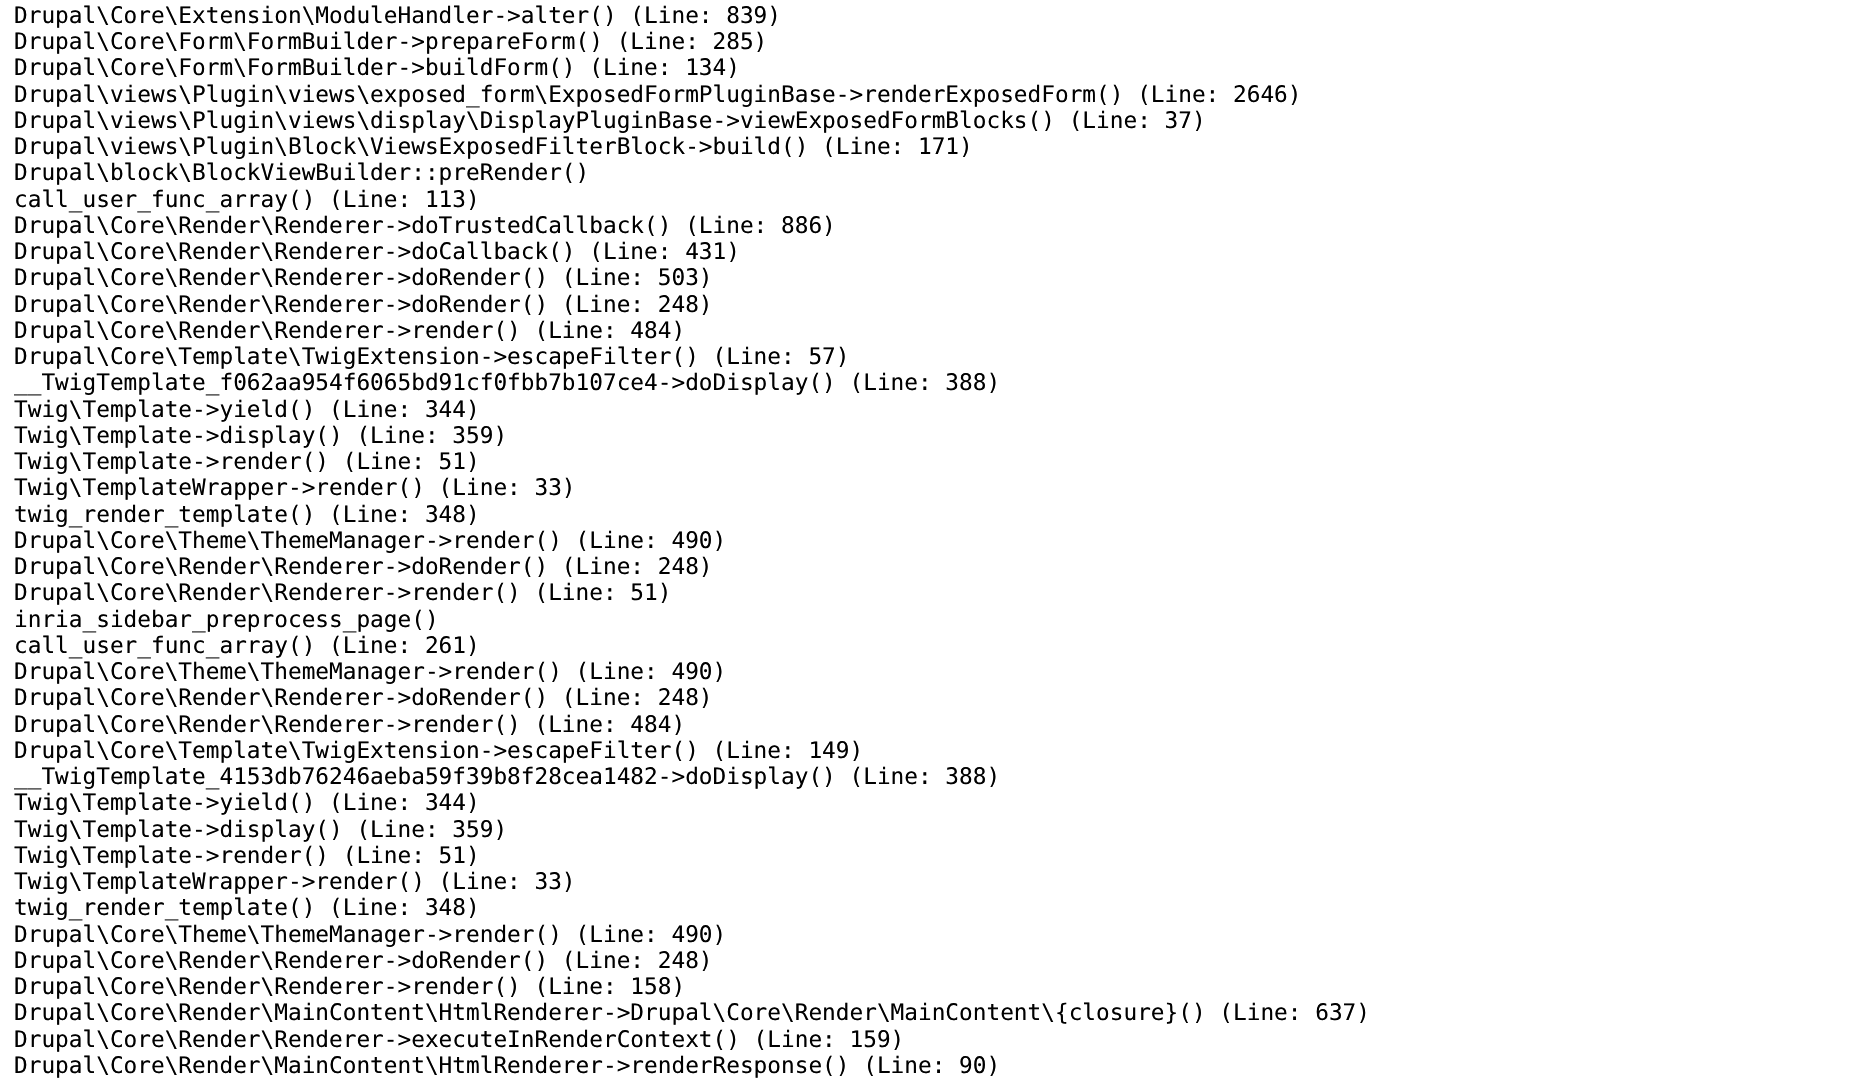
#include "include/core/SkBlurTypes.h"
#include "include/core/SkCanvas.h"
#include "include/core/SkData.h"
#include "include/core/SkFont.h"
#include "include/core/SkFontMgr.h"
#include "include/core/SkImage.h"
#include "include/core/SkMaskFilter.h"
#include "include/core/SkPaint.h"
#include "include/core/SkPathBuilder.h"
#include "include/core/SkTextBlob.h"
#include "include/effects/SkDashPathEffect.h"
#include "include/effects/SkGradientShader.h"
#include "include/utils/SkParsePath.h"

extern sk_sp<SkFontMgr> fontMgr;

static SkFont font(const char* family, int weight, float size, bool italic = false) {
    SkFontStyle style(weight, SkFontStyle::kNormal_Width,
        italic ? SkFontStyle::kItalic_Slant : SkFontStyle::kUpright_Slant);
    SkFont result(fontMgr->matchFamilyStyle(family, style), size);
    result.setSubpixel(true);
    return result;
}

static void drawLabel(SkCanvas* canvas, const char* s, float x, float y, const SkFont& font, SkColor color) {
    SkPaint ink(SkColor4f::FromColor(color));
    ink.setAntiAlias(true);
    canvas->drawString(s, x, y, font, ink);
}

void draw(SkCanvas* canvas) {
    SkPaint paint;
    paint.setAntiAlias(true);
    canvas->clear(0xFFFFFFFF);
    SkFont font1 = font("DejaVu Sans Mono", 400, 22.75f);
    drawLabel(canvas, "Drupal\\Core\\Extension\\ModuleHandler->alter() (Line: 839)", 14, 23, font1, 0xFF000000);
    drawLabel(canvas, "Drupal\\Core\\Form\\FormBuilder->prepareForm() (Line: 285)", 14, 49, font1, 0xFF000000);
    drawLabel(canvas, "Drupal\\Core\\Form\\FormBuilder->buildForm() (Line: 134)", 14, 75, font1, 0xFF000000);
    drawLabel(canvas, "Drupal\\views\\Plugin\\views\\exposed_form\\ExposedFormPluginBase->renderExposedForm() (Line: 2646)", 14, 102, font1, 0xFF000000);
    drawLabel(canvas, "Drupal\\views\\Plugin\\views\\display\\DisplayPluginBase->viewExposedFormBlocks() (Line: 37)", 14, 128, font1, 0xFF000000);
    drawLabel(canvas, "Drupal\\views\\Plugin\\Block\\ViewsExposedFilterBlock->build() (Line: 171)", 14, 154, font1, 0xFF000000);
    drawLabel(canvas, "Drupal\\block\\BlockViewBuilder::preRender()", 14, 180, font1, 0xFF000000);
    drawLabel(canvas, "call_user_func_array() (Line: 113)", 14, 207, font1, 0xFF000000);
    drawLabel(canvas, "Drupal\\Core\\Render\\Renderer->doTrustedCallback() (Line: 886)", 14, 233, font1, 0xFF000000);
    drawLabel(canvas, "Drupal\\Core\\Render\\Renderer->doCallback() (Line: 431)", 14, 259, font1, 0xFF000000);
    drawLabel(canvas, "Drupal\\Core\\Render\\Renderer->doRender() (Line: 503)", 14, 285, font1, 0xFF000000);
    drawLabel(canvas, "Drupal\\Core\\Render\\Renderer->doRender() (Line: 248)", 14, 312, font1, 0xFF000000);
    drawLabel(canvas, "Drupal\\Core\\Render\\Renderer->render() (Line: 484)", 14, 338, font1, 0xFF000000);
    drawLabel(canvas, "Drupal\\Core\\Template\\TwigExtension->escapeFilter() (Line: 57)", 14, 364, font1, 0xFF000000);
    drawLabel(canvas, "__TwigTemplate_f062aa954f6065bd91cf0fbb7b107ce4->doDisplay() (Line: 388)", 14, 390, font1, 0xFF000000);
    drawLabel(canvas, "Twig\\Template->yield() (Line: 344)", 14, 417, font1, 0xFF000000);
    drawLabel(canvas, "Twig\\Template->display() (Line: 359)", 14, 443, font1, 0xFF000000);
    drawLabel(canvas, "Twig\\Template->render() (Line: 51)", 14, 469, font1, 0xFF000000);
    drawLabel(canvas, "Twig\\TemplateWrapper->render() (Line: 33)", 14, 495, font1, 0xFF000000);
    drawLabel(canvas, "twig_render_template() (Line: 348)", 14, 522, font1, 0xFF000000);
    drawLabel(canvas, "Drupal\\Core\\Theme\\ThemeManager->render() (Line: 490)", 14, 548, font1, 0xFF000000);
    drawLabel(canvas, "Drupal\\Core\\Render\\Renderer->doRender() (Line: 248)", 14, 574, font1, 0xFF000000);
    drawLabel(canvas, "Drupal\\Core\\Render\\Renderer->render() (Line: 51)", 14, 600, font1, 0xFF000000);
    drawLabel(canvas, "inria_sidebar_preprocess_page()", 14, 627, font1, 0xFF000000);
    drawLabel(canvas, "call_user_func_array() (Line: 261)", 14, 653, font1, 0xFF000000);
    drawLabel(canvas, "Drupal\\Core\\Theme\\ThemeManager->render() (Line: 490)", 14, 679, font1, 0xFF000000);
    drawLabel(canvas, "Drupal\\Core\\Render\\Renderer->doRender() (Line: 248)", 14, 705, font1, 0xFF000000);
    drawLabel(canvas, "Drupal\\Core\\Render\\Renderer->render() (Line: 484)", 14, 732, font1, 0xFF000000);
    drawLabel(canvas, "Drupal\\Core\\Template\\TwigExtension->escapeFilter() (Line: 149)", 14, 758, font1, 0xFF000000);
    drawLabel(canvas, "__TwigTemplate_4153db76246aeba59f39b8f28cea1482->doDisplay() (Line: 388)", 14, 784, font1, 0xFF000000);
    drawLabel(canvas, "Twig\\Template->yield() (Line: 344)", 14, 810, font1, 0xFF000000);
    drawLabel(canvas, "Twig\\Template->display() (Line: 359)", 14, 837, font1, 0xFF000000);
    drawLabel(canvas, "Twig\\Template->render() (Line: 51)", 14, 863, font1, 0xFF000000);
    drawLabel(canvas, "Twig\\TemplateWrapper->render() (Line: 33)", 14, 889, font1, 0xFF000000);
    drawLabel(canvas, "twig_render_template() (Line: 348)", 14, 915, font1, 0xFF000000);
    drawLabel(canvas, "Drupal\\Core\\Theme\\ThemeManager->render() (Line: 490)", 14, 942, font1, 0xFF000000);
    drawLabel(canvas, "Drupal\\Core\\Render\\Renderer->doRender() (Line: 248)", 14, 968, font1, 0xFF000000);
    drawLabel(canvas, "Drupal\\Core\\Render\\Renderer->render() (Line: 158)", 14, 994, font1, 0xFF000000);
    drawLabel(canvas, "Drupal\\Core\\Render\\MainContent\\HtmlRenderer->Drupal\\Core\\Render\\MainContent\\{closure}() (Line: 637)", 14, 1020, font1, 0xFF000000);
    drawLabel(canvas, "Drupal\\Core\\Render\\Renderer->executeInRenderContext() (Line: 159)", 14, 1047, font1, 0xFF000000);
    drawLabel(canvas, "Drupal\\Core\\Render\\MainContent\\HtmlRenderer->renderResponse() (Line: 90)", 14, 1073, font1, 0xFF000000);
}
